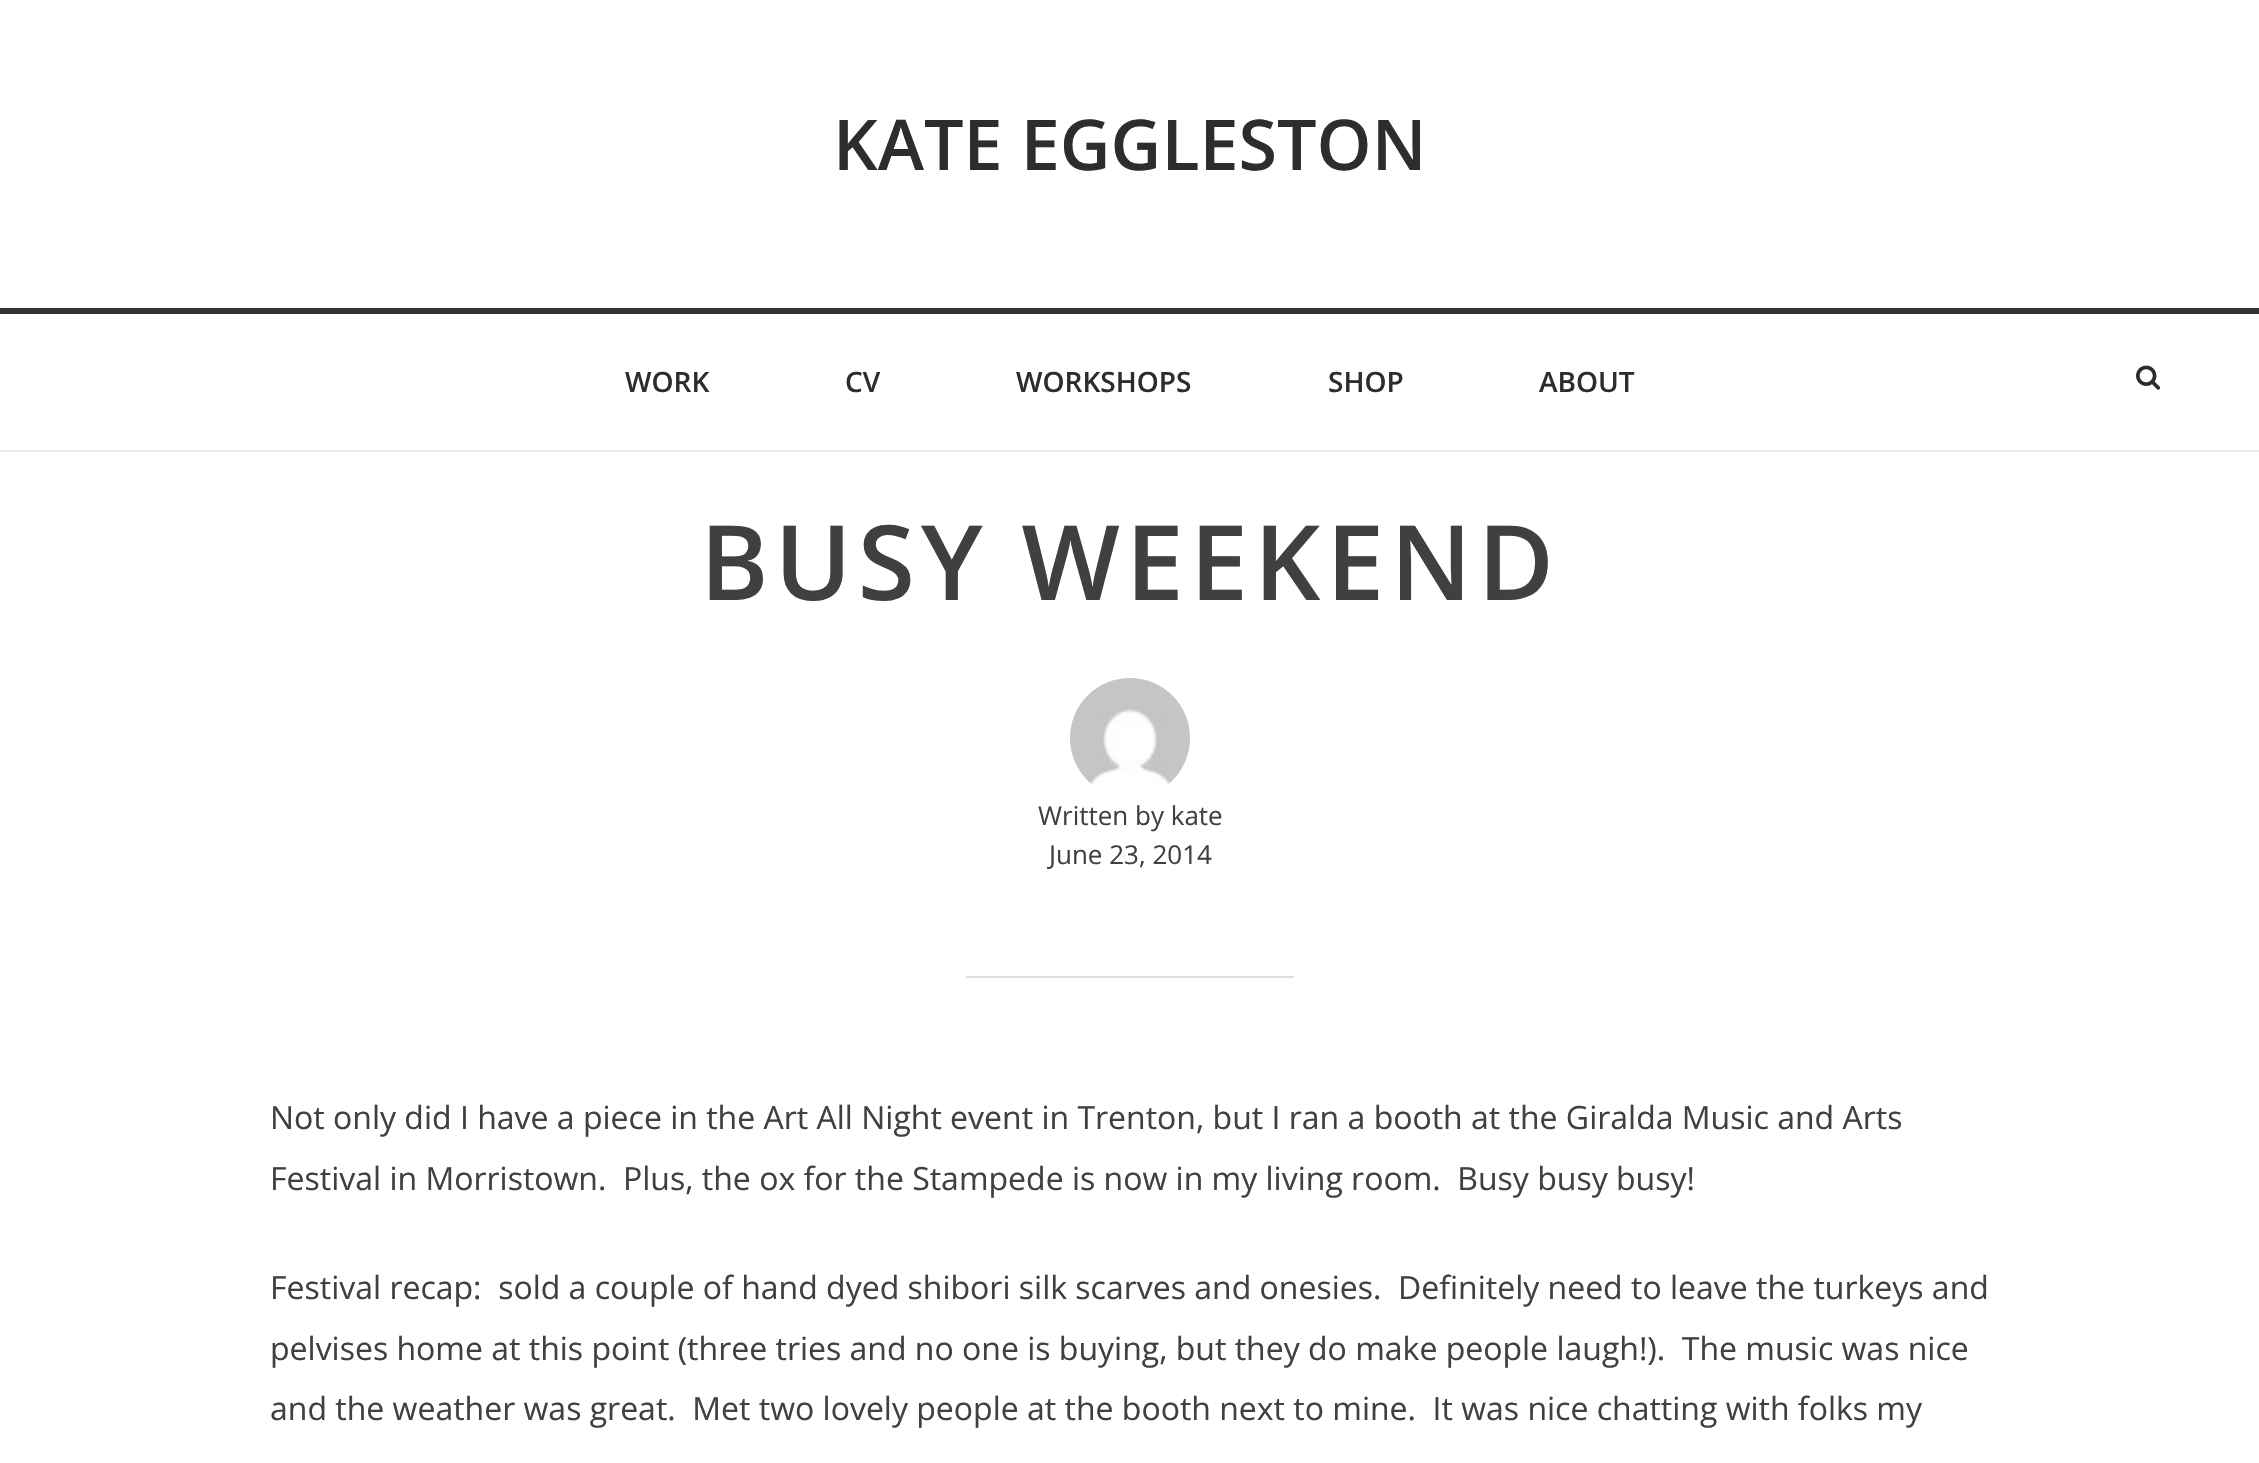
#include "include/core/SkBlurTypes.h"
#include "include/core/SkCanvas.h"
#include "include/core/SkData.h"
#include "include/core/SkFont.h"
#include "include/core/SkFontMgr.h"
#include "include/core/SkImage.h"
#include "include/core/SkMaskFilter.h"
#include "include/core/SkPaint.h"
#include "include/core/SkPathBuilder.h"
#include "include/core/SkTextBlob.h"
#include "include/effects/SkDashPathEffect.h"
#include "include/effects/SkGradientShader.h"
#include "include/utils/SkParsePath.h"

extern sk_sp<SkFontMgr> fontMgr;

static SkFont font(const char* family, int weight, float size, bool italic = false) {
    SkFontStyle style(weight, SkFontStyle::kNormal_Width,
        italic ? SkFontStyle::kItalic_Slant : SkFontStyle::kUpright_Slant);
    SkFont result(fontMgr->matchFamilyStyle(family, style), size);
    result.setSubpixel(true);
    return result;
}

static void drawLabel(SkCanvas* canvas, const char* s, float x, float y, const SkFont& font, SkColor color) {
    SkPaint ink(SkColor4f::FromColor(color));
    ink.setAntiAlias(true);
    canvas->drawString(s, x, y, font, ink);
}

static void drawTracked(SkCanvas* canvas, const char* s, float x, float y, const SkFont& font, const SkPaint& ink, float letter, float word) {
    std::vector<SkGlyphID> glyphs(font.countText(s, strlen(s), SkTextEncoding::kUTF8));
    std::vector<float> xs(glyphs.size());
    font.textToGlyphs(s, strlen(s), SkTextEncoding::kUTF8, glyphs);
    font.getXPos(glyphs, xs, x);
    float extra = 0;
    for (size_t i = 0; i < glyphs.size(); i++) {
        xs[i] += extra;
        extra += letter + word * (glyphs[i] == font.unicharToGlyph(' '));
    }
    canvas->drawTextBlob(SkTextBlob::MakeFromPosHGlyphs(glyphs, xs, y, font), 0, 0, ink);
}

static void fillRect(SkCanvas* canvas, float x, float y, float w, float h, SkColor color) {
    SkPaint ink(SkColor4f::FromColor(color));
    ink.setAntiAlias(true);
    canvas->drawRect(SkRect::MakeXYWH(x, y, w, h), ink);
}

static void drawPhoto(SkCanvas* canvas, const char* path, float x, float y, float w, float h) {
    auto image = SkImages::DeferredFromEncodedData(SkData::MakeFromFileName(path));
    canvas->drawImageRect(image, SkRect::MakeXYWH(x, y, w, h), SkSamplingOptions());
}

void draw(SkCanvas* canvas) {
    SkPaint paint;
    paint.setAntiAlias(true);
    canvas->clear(0xFFFFFFFF);
    SkFont font1 = font("Open Sans", 600, 70);
    drawLabel(canvas, "KATE EGGLESTON", 833, 170, font1, 0xFF2D2D2D);
    fillRect(canvas, 0, 308, 2259, 6, 0xFF333333);
    fillRect(canvas, 0, 450, 2259, 2, 0xFFEAEAEA);
    SkFont font2 = font("Open Sans", 600, 28);
    drawLabel(canvas, "WORK", 625, 392, font2, 0xFF2D2D2D);
    drawLabel(canvas, "CV", 845, 392, font2, 0xFF2D2D2D);
    drawLabel(canvas, "WORKSHOPS", 1016, 392, font2, 0xFF2D2D2D);
    drawLabel(canvas, "SHOP", 1328, 392, font2, 0xFF2D2D2D);
    drawLabel(canvas, "ABOUT", 1539, 392, font2, 0xFF2D2D2D);
    drawPhoto(canvas, "assets/img1.png", 2136, 365, 25, 25);
    SkFont font3 = font("Open Sans", 600, 104);
    paint.setColor(0xFF404040);
    drawTracked(canvas, "BUSY WEEKEND", 700, 600, font3, paint, 6, 0);
    drawPhoto(canvas, "assets/img2.png", 1070, 678, 120, 107);
    SkFont font4 = font("Open Sans", 400, 26);
    drawLabel(canvas, "Written by kate", 1038, 825, font4, 0xFF404040);
    drawLabel(canvas, "June 23, 2014", 1049, 864, font4, 0xFF404040);
    fillRect(canvas, 966, 976, 328, 2, 0xFFDEDEDE);
    SkFont font5 = font("Open Sans", 400, 32);
    drawLabel(canvas, "Not only did I have a piece in the Art All Night event in Trenton, but I ran a booth at the Giralda Music and Arts", 270, 1129, font5, 0xFF404040);
    drawLabel(canvas, "Festival in Morristown.  Plus, the ox for the Stampede is now in my living room.  Busy busy busy!", 270, 1190, font5, 0xFF404040);
    drawLabel(canvas, "Festival recap:  sold a couple of hand dyed shibori silk scarves and onesies.  Definitely need to leave the turkeys and", 270, 1299, font5, 0xFF404040);
    drawLabel(canvas, "pelvises home at this point (three tries and no one is buying, but they do make people laugh!).  The music was nice", 270, 1360, font5, 0xFF404040);
    drawLabel(canvas, "and the weather was great.  Met two lovely people at the booth next to mine.  It was nice chatting with folks my", 270, 1420, font5, 0xFF404040);
}
